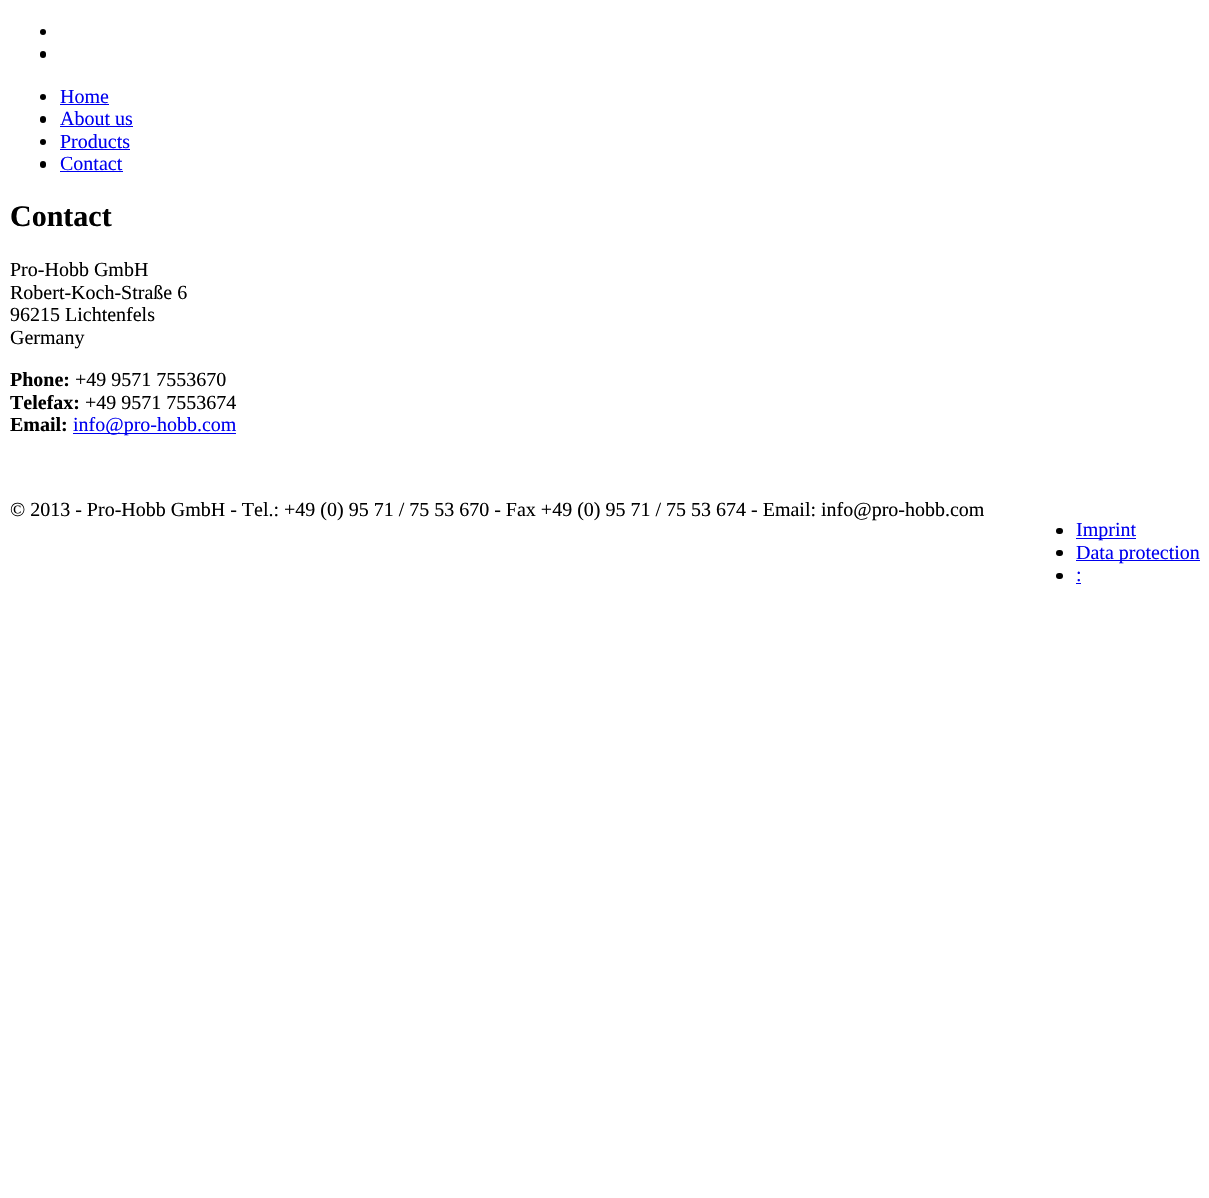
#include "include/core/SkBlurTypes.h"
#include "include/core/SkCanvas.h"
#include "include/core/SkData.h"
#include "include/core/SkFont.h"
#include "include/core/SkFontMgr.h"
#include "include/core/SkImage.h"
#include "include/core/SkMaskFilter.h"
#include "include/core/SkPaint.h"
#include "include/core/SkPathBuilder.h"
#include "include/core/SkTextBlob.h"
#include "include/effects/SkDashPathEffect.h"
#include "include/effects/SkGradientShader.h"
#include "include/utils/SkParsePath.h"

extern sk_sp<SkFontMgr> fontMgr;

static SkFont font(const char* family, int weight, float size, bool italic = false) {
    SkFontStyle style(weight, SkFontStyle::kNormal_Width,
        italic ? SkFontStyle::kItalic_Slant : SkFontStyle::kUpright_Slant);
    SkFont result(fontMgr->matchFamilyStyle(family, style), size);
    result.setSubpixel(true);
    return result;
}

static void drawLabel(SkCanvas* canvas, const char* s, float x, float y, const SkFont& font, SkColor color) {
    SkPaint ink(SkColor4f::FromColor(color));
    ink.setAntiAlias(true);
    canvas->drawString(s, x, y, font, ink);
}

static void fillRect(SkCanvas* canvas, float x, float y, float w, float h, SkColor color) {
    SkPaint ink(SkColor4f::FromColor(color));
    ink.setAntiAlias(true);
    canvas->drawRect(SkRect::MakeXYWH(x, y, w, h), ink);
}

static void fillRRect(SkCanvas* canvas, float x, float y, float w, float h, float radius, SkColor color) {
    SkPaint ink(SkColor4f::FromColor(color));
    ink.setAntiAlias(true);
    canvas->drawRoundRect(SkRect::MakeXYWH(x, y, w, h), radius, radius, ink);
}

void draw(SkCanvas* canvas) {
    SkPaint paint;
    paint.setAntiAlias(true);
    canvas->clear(0xFFFFFFFF);
    paint.setColor(0xFF000000);
    canvas->drawCircle(43, 32, 3, paint);
    fillRRect(canvas, 40, 51, 6, 7, 3, 0xFF000000);
    canvas->drawCircle(43, 97, 3, paint);
    SkFont font1 = font("Liberation Serif", 400, 20);
    drawLabel(canvas, "Home", 60, 103, font1, 0xFF0000EE);
    fillRect(canvas, 60, 104, 49, 1, 0xFF0000EE);
    fillRRect(canvas, 40, 116, 6, 7, 3, 0xFF000000);
    drawLabel(canvas, "About us", 60, 125, font1, 0xFF0000EE);
    fillRect(canvas, 60, 126, 73, 1, 0xFF0000EE);
    canvas->drawCircle(43, 142, 3, paint);
    drawLabel(canvas, "Products", 60, 148, font1, 0xFF0000EE);
    fillRect(canvas, 60, 149, 70, 1, 0xFF0000EE);
    fillRRect(canvas, 40, 161, 6, 7, 3, 0xFF000000);
    drawLabel(canvas, "Contact", 60, 170, font1, 0xFF0000EE);
    fillRect(canvas, 60, 171, 63, 1, 0xFF0000EE);
    SkFont font2 = font("Liberation Serif", 700, 30);
    drawLabel(canvas, "Contact", 10, 226, font2, 0xFF000000);
    drawLabel(canvas, "Pro-Hobb GmbH", 10, 276, font1, 0xFF000000);
    drawLabel(canvas, "Robert-Koch-Straße 6", 10, 299, font1, 0xFF000000);
    drawLabel(canvas, "96215 Lichtenfels", 10, 321, font1, 0xFF000000);
    drawLabel(canvas, "Germany", 10, 344, font1, 0xFF000000);
    SkFont font3 = font("Liberation Serif", 700, 20);
    drawLabel(canvas, "Phone:", 10, 386, font3, 0xFF000000);
    drawLabel(canvas, "+49 9571 7553670", 75, 386, font1, 0xFF000000);
    drawLabel(canvas, "Telefax:", 10, 409, font3, 0xFF000000);
    drawLabel(canvas, "+49 9571 7553674", 85, 409, font1, 0xFF000000);
    drawLabel(canvas, "Email:", 10, 431, font3, 0xFF000000);
    fillRect(canvas, 73, 433, 163, 1, 0xFF0000EE);
    drawLabel(canvas, "info@pro-hobb.com", 73, 431, font1, 0xFF0000EE);
    drawLabel(canvas, "© 2013 - Pro-Hobb GmbH - Tel.: +49 (0) 95 71 / 75 53 670 - Fax +49 (0) 95 71 / 75 53 674 - Email: info@pro-hobb.com", 10, 516, font1, 0xFF000000);
    fillRRect(canvas, 1056, 528, 7, 6, 3, 0xFF000000);
    fillRect(canvas, 1076, 538, 60, 1, 0xFF0000EE);
    drawLabel(canvas, "Imprint", 1076, 536, font1, 0xFF0000EE);
    fillRRect(canvas, 1056, 550, 7, 6, 3, 0xFF000000);
    fillRect(canvas, 1076, 560, 124, 1, 0xFF0000EE);
    drawLabel(canvas, "Data protection", 1076, 559, font1, 0xFF0000EE);
    fillRRect(canvas, 1056, 573, 7, 6, 3, 0xFF000000);
    drawLabel(canvas, ":", 1076, 581, font1, 0xFF0000EE);
    fillRect(canvas, 1076, 583, 5, 1, 0xFF0000EE);
}
